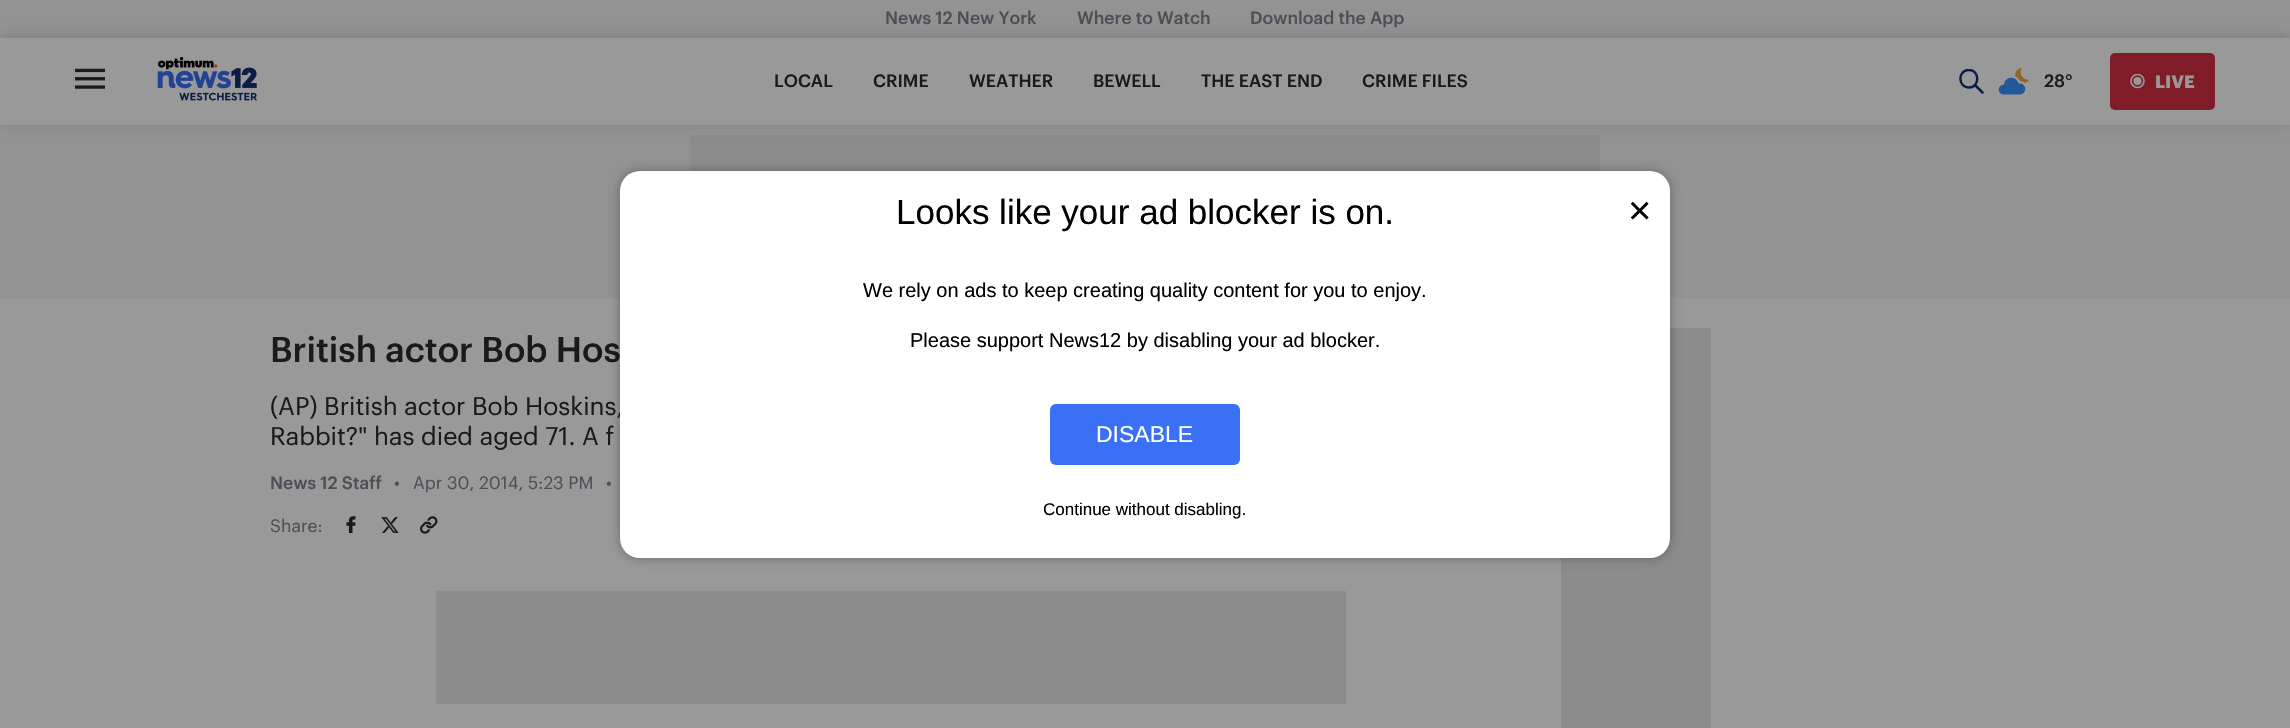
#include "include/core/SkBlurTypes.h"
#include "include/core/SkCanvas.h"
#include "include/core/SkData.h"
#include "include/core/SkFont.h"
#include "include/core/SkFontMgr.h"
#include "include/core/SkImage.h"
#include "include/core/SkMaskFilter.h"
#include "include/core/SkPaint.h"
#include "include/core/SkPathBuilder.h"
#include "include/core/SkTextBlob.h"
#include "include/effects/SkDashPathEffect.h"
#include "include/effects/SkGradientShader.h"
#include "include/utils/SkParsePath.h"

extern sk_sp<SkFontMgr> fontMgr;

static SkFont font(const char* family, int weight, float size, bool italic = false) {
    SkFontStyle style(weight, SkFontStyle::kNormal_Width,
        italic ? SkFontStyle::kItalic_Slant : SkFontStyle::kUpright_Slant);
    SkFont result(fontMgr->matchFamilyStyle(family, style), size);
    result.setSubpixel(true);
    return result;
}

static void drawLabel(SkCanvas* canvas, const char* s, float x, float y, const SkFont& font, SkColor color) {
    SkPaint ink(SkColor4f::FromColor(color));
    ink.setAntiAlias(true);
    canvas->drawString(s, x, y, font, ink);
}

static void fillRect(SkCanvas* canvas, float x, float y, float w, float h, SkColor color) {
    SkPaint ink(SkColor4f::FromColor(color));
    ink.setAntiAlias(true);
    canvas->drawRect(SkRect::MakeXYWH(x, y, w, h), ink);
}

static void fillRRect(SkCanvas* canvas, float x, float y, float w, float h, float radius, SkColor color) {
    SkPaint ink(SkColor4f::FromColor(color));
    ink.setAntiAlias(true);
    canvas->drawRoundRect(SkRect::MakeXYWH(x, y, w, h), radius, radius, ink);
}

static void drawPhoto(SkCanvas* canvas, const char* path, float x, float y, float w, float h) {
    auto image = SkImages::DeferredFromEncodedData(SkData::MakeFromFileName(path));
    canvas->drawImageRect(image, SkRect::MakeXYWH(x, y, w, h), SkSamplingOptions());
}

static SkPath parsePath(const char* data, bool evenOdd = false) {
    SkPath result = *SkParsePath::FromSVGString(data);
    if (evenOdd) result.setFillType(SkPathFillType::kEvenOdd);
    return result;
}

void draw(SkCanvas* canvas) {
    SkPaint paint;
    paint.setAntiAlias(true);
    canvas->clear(0xFF999999);
    fillRect(canvas, 0, 0, 2290, 38, 0xFF939393);
    SkFont font1 = font("Graphik", 500, 17.5f);
    drawLabel(canvas, "News 12 New York", 885, 24, font1, 0xFF4D4F56);
    drawLabel(canvas, "Where to Watch", 1077, 24, font1, 0xFF4D4F56);
    drawLabel(canvas, "Download the App", 1250, 24, font1, 0xFF4D4F56);
    fillRect(canvas, 0, 125, 2290, 173, 0xFF939393);
    fillRect(canvas, 690, 135, 910, 36, 0xFF8C8C8C);
    canvas->save();
    canvas->clipPath(parsePath("M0 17H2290V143H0ZM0 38H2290V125H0Z", true), true);
    paint.setColor(0x26000000);
    paint.setMaskFilter(SkMaskFilter::MakeBlur(kNormal_SkBlurStyle, 6));
    canvas->drawRect(SkRect::MakeXYWH(0, 36, 2290, 88), paint);
    paint.setMaskFilter(nullptr);
    canvas->restore();
    drawPhoto(canvas, "assets/img1.png", 75, 68, 30, 21);
    drawPhoto(canvas, "assets/img2.png", 157, 57, 100, 44);
    drawLabel(canvas, "LOCAL", 774, 87, font1, 0xFF1A1A1A);
    drawLabel(canvas, "CRIME", 873, 87, font1, 0xFF1A1A1A);
    drawLabel(canvas, "WEATHER", 969, 87, font1, 0xFF1A1A1A);
    drawLabel(canvas, "BEWELL", 1093, 87, font1, 0xFF1A1A1A);
    drawLabel(canvas, "THE EAST END", 1201, 87, font1, 0xFF1A1A1A);
    drawLabel(canvas, "CRIME FILES", 1362, 87, font1, 0xFF1A1A1A);
    canvas->save();
    canvas->clipRect(SkRect::MakeXYWH(1959, 69, 25, 25));
    paint.setStroke(true);
    paint.setStrokeWidth(2.5f);
    paint.setStrokeCap(SkPaint::kRound_Cap);
    paint.setStrokeJoin(SkPaint::kRound_Join);
    paint.setColor(0xFF0B1D46);
    canvas->drawPath(parsePath("M1975 85L1982.5 92.5M1969 87.5C1957.5 87.5 1957.5 70 1969 70C1980 70 1980 87.5 1969 87.5Z"), paint);
    canvas->restore();
    drawPhoto(canvas, "assets/img3.png", 1998, 68, 31, 27);
    drawLabel(canvas, "28°", 2044, 87, font1, 0xFF1A1A1A);
    fillRRect(canvas, 2110, 53, 105, 57, 5, 0xFF7F1C28);
    paint.setStroke(false);
    paint.setColor(0xFF999999);
    canvas->drawCircle(2137.5f, 81, 4, paint);
    canvas->save();
    canvas->clipRect(SkRect::MakeXYWH(2130, 74, 15, 15));
    paint.setStroke(true);
    paint.setStrokeWidth(1.6f);
    paint.setStrokeCap(SkPaint::kButt_Cap);
    paint.setStrokeJoin(SkPaint::kMiter_Join);
    canvas->drawCircle(2137.5f, 81, 6.5f, paint);
    canvas->restore();
    SkFont font2 = font("Graphik", 700, 17.5f);
    drawLabel(canvas, "LIVE", 2155, 88, font2, 0xFF999999);
    SkFont font3 = font("Graphik", 500, 35);
    drawLabel(canvas, "British actor Bob Hos", 270, 362, font3, 0xFF1A1A1A);
    SkFont font4 = font("Graphik", 400, 25);
    drawLabel(canvas, "(AP) British actor Bob Hoskins,", 270, 415, font4, 0xFF1A1A1A);
    drawLabel(canvas, "Rabbit?\" has died aged 71. A f", 270, 445, font4, 0xFF1A1A1A);
    drawLabel(canvas, "News 12 Staff", 270, 489, font1, 0xFF4D4F56);
    SkFont font5 = font("Graphik", 400, 17.5f);
    drawLabel(canvas, "•", 394, 489, font5, 0xFF4D4F56);
    drawLabel(canvas, "Apr 30, 2014, 5:23 PM", 413, 489, font5, 0xFF4D4F56);
    drawLabel(canvas, "•", 606, 489, font5, 0xFF4D4F56);
    drawLabel(canvas, "Share:", 270, 532, font5, 0xFF4D4F56);
    drawPhoto(canvas, "assets/img4.png", 346, 516, 10, 17);
    drawPhoto(canvas, "assets/img5.png", 381, 517, 18, 16);
    drawPhoto(canvas, "assets/img6.png", 420, 516, 18, 18);
    fillRect(canvas, 436, 591, 910, 113, 0xFF8C8C8C);
    fillRect(canvas, 1561, 328, 150, 400, 0xFF8C8C8C);
    paint.setStroke(false);
    paint.setColor(0x4D000000);
    paint.setMaskFilter(SkMaskFilter::MakeBlur(kNormal_SkBlurStyle, 6));
    canvas->drawRoundRect(SkRect::MakeXYWH(620, 171, 1050, 387), 20, 20, paint);
    paint.setMaskFilter(nullptr);
    fillRRect(canvas, 620, 171, 1050, 387, 20, 0xFFFFFFFF);
    SkFont font6 = font("Liberation Sans", 400, 35);
    drawLabel(canvas, "Looks like your ad blocker is on.", 896, 224, font6, 0xFF000000);
    SkFont font7 = font("Liberation Sans", 400, 40);
    drawLabel(canvas, "×", 1628, 224, font7, 0xFF000000);
    SkFont font8 = font("Liberation Sans", 400, 20);
    drawLabel(canvas, "We rely on ads to keep creating quality content for you to enjoy.", 863, 297, font8, 0xFF000000);
    drawLabel(canvas, "Please support News12 by disabling your ad blocker.", 910, 347, font8, 0xFF000000);
    fillRRect(canvas, 1050, 404, 190, 61, 6, 0xFF3970F6);
    SkFont font9 = font("Liberation Sans", 400, 23);
    drawLabel(canvas, "DISABLE", 1096, 442, font9, 0xFFFFFFFF);
    SkFont font10 = font("Liberation Sans", 400, 17);
    drawLabel(canvas, "Continue without disabling.", 1043, 515, font10, 0xFF000000);
}
